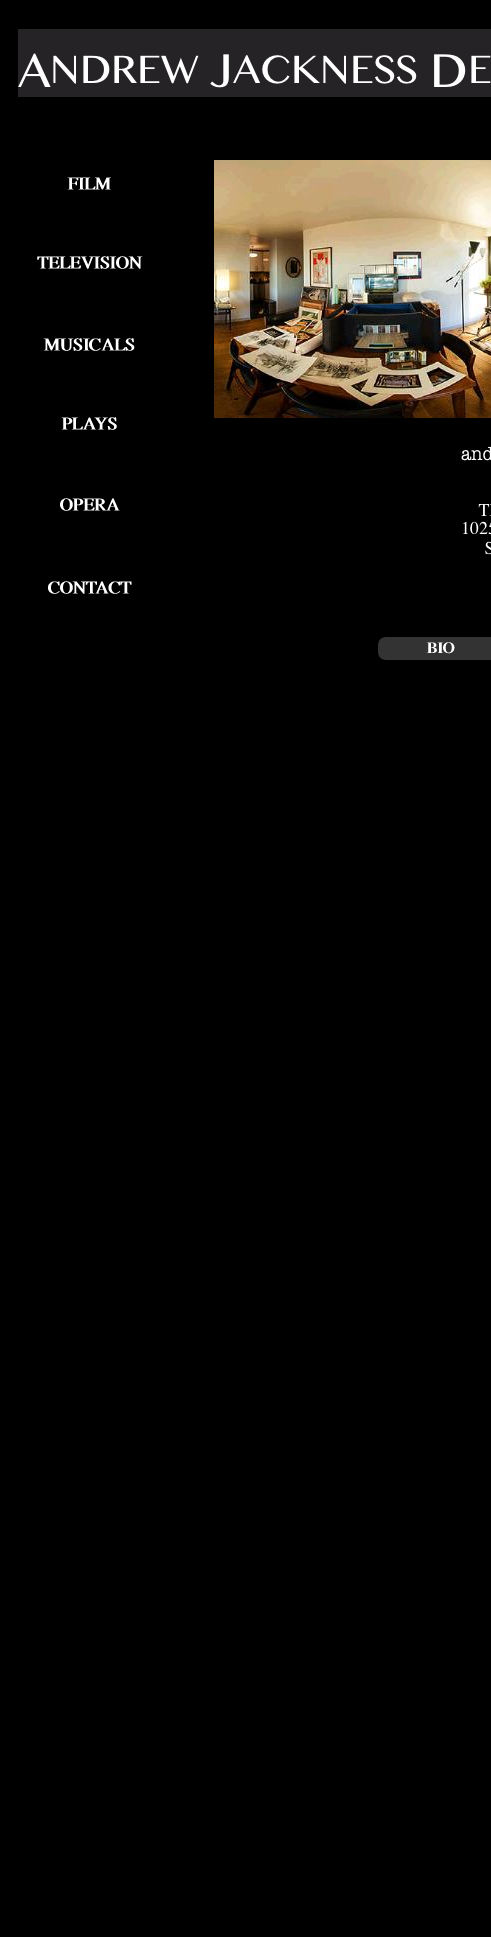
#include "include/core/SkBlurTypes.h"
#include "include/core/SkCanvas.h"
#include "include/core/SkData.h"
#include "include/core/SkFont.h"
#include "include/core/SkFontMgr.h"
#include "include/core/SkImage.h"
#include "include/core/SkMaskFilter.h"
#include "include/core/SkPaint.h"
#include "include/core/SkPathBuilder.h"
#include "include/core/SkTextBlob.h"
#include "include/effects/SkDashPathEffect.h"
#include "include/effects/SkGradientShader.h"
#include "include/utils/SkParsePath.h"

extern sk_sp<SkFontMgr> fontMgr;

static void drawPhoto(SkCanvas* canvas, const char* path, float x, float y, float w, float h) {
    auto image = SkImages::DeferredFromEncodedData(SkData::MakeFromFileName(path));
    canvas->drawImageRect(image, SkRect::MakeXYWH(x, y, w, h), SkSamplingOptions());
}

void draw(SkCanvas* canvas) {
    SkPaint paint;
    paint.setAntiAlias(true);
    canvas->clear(0xFF000000);
    drawPhoto(canvas, "assets/img1.png", 18, 29, 473, 68);
    drawPhoto(canvas, "assets/img2.png", 67, 177, 44, 13);
    drawPhoto(canvas, "assets/img3.png", 214, 160, 277, 258);
    drawPhoto(canvas, "assets/img4.png", 37, 256, 106, 13);
    drawPhoto(canvas, "assets/img5.png", 43, 338, 92, 13);
    drawPhoto(canvas, "assets/img6.png", 61, 417, 56, 13);
    drawPhoto(canvas, "assets/img7.png", 60, 498, 60, 13);
    drawPhoto(canvas, "assets/img8.png", 461, 446, 30, 109);
    drawPhoto(canvas, "assets/img9.png", 48, 581, 84, 13);
    drawPhoto(canvas, "assets/img10.png", 378, 637, 113, 23);
}
